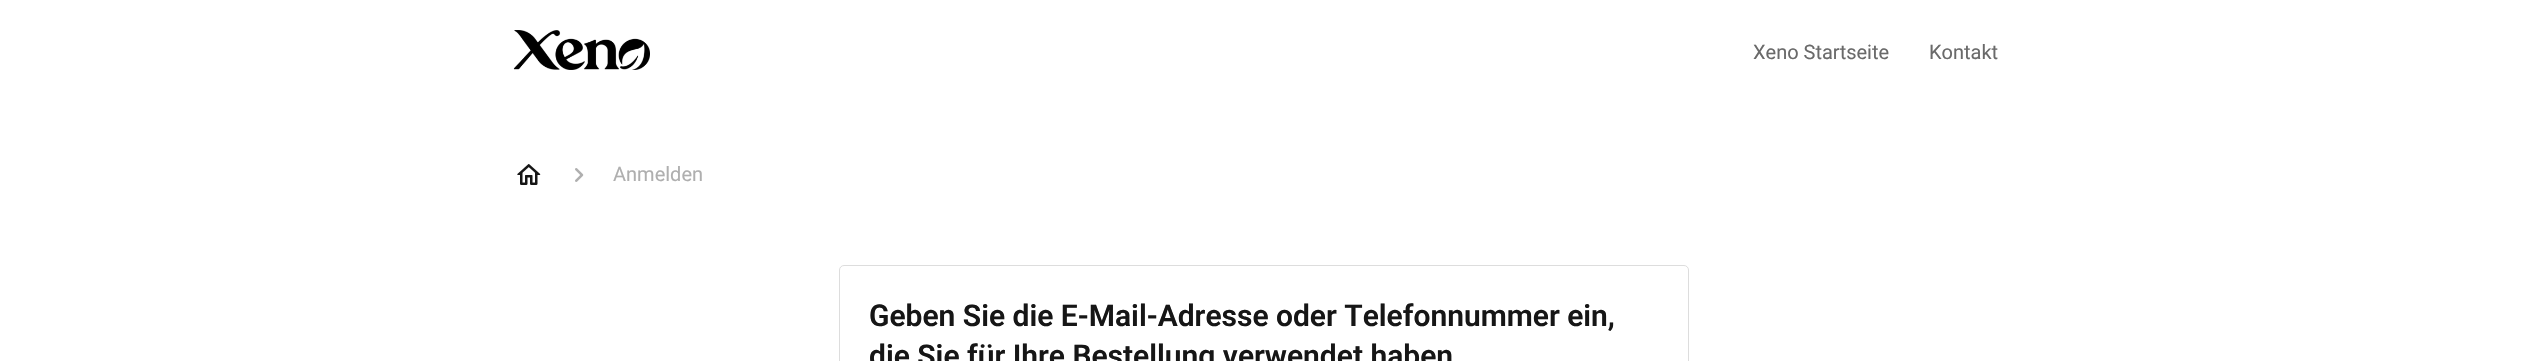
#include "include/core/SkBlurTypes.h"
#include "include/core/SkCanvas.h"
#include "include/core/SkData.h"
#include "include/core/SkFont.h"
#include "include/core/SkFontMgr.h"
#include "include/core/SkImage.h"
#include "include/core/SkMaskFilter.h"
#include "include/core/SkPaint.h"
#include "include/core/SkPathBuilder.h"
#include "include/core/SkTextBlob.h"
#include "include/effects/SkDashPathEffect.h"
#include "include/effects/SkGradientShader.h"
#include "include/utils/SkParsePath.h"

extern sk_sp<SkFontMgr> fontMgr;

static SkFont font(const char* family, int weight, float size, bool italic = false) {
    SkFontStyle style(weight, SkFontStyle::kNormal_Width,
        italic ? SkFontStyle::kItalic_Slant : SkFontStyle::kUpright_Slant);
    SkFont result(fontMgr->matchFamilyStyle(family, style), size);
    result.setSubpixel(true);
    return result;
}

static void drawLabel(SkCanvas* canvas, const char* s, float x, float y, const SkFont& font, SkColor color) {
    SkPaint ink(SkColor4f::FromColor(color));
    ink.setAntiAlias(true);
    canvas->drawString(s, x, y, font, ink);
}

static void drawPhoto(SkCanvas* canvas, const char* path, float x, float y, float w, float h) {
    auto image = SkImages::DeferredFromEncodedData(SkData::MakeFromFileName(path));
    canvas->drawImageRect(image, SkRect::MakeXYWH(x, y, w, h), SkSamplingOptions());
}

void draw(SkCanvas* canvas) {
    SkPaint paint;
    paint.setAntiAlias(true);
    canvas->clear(0xFFFFFFFF);
    drawPhoto(canvas, "assets/img1.png", 513, 30, 137, 40);
    SkFont font1 = font("Roboto", 400, 20);
    drawLabel(canvas, "Xeno Startseite", 1753, 59, font1, 0xFF6A6A6A);
    drawLabel(canvas, "Kontakt", 1929, 59, font1, 0xFF6A6A6A);
    drawPhoto(canvas, "assets/img2.png", 517, 164, 24, 21);
    drawPhoto(canvas, "assets/img3.png", 575, 168, 9, 14);
    drawLabel(canvas, "Anmelden", 613, 181, font1, 0xFFAFAFAF);
    paint.setStroke(true);
    paint.setStrokeWidth(1);
    paint.setColor(0xFFDDDDDD);
    canvas->drawRoundRect(SkRect::MakeXYWH(839.5f, 265.5f, 849, 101), 4.5f, 4.5f, paint);
    SkFont font2 = font("Roboto", 600, 30);
    drawLabel(canvas, "Geben Sie die E-Mail-Adresse oder Telefonnummer ein,", 869, 326, font2, 0xFF161616);
    drawLabel(canvas, "die Sie für Ihre Bestellung verwendet haben", 869, 366, font2, 0xFF161616);
}
